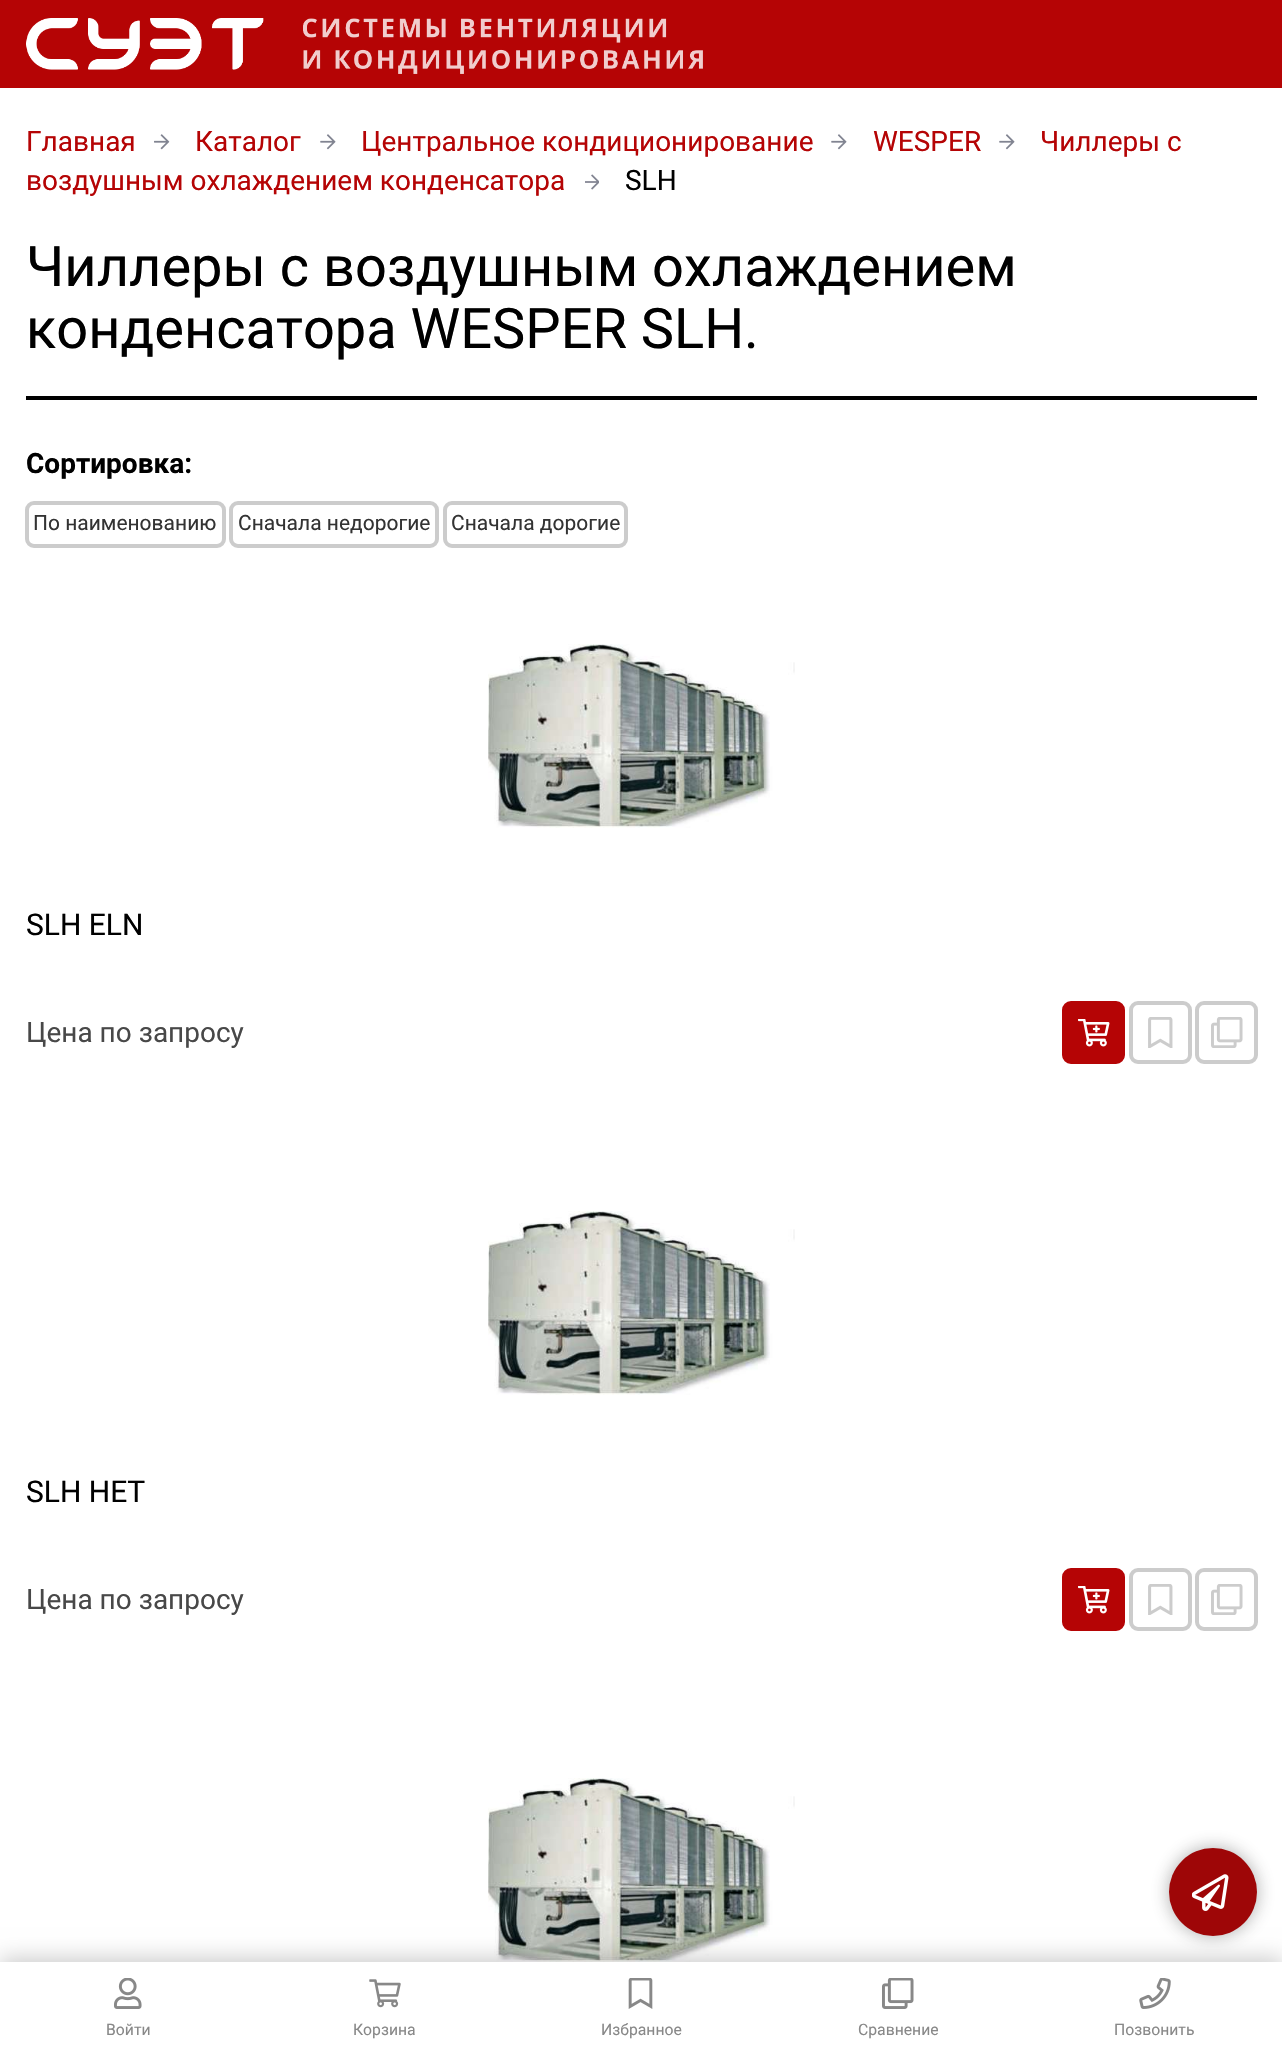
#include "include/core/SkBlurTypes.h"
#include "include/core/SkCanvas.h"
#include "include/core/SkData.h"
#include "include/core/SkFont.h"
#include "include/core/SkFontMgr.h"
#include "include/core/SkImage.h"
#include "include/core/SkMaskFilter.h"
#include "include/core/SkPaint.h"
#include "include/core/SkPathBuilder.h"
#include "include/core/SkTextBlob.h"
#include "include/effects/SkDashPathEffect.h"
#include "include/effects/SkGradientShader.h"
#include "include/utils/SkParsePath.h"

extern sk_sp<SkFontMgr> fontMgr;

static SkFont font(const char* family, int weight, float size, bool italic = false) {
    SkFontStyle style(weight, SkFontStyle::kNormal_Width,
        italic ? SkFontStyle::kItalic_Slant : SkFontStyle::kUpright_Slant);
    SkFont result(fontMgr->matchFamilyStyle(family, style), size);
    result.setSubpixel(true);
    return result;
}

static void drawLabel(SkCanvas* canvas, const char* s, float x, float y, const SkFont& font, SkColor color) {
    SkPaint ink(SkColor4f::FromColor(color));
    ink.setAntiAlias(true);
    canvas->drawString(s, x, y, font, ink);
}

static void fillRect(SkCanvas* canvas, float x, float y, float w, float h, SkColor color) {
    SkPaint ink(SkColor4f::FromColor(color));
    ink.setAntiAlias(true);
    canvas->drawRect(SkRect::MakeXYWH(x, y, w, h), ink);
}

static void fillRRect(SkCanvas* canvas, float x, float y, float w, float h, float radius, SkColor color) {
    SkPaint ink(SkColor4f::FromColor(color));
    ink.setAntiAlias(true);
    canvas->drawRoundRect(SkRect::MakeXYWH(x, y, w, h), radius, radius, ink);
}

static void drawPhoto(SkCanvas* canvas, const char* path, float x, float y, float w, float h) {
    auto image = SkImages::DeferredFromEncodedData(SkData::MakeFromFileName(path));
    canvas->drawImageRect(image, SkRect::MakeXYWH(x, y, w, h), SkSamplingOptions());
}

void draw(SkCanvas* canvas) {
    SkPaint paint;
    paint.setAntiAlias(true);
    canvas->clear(0xFFFFFFFF);
    SkFont font1 = font("Roboto", 400, 28);
    drawLabel(canvas, "Главная", 26, 151, font1, 0xFFB50405);
    drawPhoto(canvas, "assets/img1.png", 154, 134, 16, 16);
    drawLabel(canvas, "WESPER", 873, 151, font1, 0xFFB50405);
    drawPhoto(canvas, "assets/img2.png", 999, 134, 16, 16);
    drawLabel(canvas, "Чиллеры с", 1040, 151, font1, 0xFFB50405);
    drawLabel(canvas, "воздушным охлаждением конденсатора", 26, 190, font1, 0xFFB50405);
    drawPhoto(canvas, "assets/img3.png", 585, 174, 14, 16);
    drawLabel(canvas, "Каталог", 195, 151, font1, 0xFFB50405);
    drawPhoto(canvas, "assets/img2.png", 320, 134, 16, 16);
    drawLabel(canvas, "Центральное кондиционирование", 361, 151, font1, 0xFFB50405);
    drawPhoto(canvas, "assets/img2.png", 831, 134, 16, 16);
    drawLabel(canvas, "SLH", 625, 190, font1, 0xFF000000);
    fillRect(canvas, 26, 396, 1231, 4, 0xFF000000);
    SkFont font2 = font("Roboto", 400, 56);
    drawLabel(canvas, "Чиллеры с воздушным охлаждением", 26, 286, font2, 0xFF000000);
    drawLabel(canvas, "конденсатора WESPER SLH.", 26, 348, font2, 0xFF000000);
    SkFont font3 = font("Roboto", 700, 28);
    drawLabel(canvas, "Сортировка:", 26, 473, font3, 0xFF000000);
    paint.setStroke(true);
    paint.setStrokeWidth(4);
    paint.setColor(0xFFCCCCCC);
    canvas->drawRoundRect(SkRect::MakeXYWH(27, 503, 197, 43), 7, 7, paint);
    SkFont font4 = font("Roboto", 400, 21);
    drawLabel(canvas, "По наименованию", 33, 530, font4, 0xFF333333);
    canvas->drawRoundRect(SkRect::MakeXYWH(231, 503, 206, 43), 7, 7, paint);
    drawLabel(canvas, "Сначала недорогие", 238, 530, font4, 0xFF333333);
    canvas->drawRoundRect(SkRect::MakeXYWH(445, 503, 181, 43), 7, 7, paint);
    drawLabel(canvas, "Сначала дорогие", 451, 530, font4, 0xFF333333);
    drawPhoto(canvas, "assets/img4.png", 488, 644, 307, 184);
    SkFont font5 = font("Roboto", 400, 30);
    drawLabel(canvas, "SLH ELN", 26, 935, font5, 0xFF000000);
    drawLabel(canvas, "Цена по запросу", 26, 1042, font1, 0xFF484848);
    fillRRect(canvas, 1064, 1003, 60, 59, 7, 0xFFB50405);
    drawPhoto(canvas, "assets/img5.png", 1078, 1019, 32, 28);
    paint.setColor(0xFFB50405);
    canvas->drawRoundRect(SkRect::MakeXYWH(1064, 1003, 59, 59), 7, 7, paint);
    drawPhoto(canvas, "assets/img6.png", 1148, 1017, 25, 31);
    paint.setColor(0xFFCCCCCC);
    canvas->drawRoundRect(SkRect::MakeXYWH(1131, 1003, 59, 59), 7, 7, paint);
    drawPhoto(canvas, "assets/img7.png", 1211, 1017, 32, 31);
    canvas->drawRoundRect(SkRect::MakeXYWH(1197, 1003, 59, 59), 7, 7, paint);
    drawPhoto(canvas, "assets/img8.png", 488, 1211, 307, 184);
    drawLabel(canvas, "SLH HET", 26, 1502, font5, 0xFF000000);
    drawLabel(canvas, "Цена по запросу", 26, 1609, font1, 0xFF484848);
    fillRRect(canvas, 1064, 1570, 60, 59, 7, 0xFFB50405);
    drawPhoto(canvas, "assets/img5.png", 1078, 1586, 32, 28);
    paint.setColor(0xFFB50405);
    canvas->drawRoundRect(SkRect::MakeXYWH(1064, 1570, 59, 59), 7, 7, paint);
    drawPhoto(canvas, "assets/img6.png", 1148, 1584, 25, 31);
    paint.setColor(0xFFCCCCCC);
    canvas->drawRoundRect(SkRect::MakeXYWH(1131, 1570, 59, 59), 7, 7, paint);
    drawPhoto(canvas, "assets/img7.png", 1211, 1584, 32, 31);
    canvas->drawRoundRect(SkRect::MakeXYWH(1197, 1570, 59, 59), 7, 7, paint);
    drawPhoto(canvas, "assets/img8.png", 488, 1778, 307, 184);
    paint.setStroke(false);
    paint.setColor(0x33000000);
    paint.setMaskFilter(SkMaskFilter::MakeBlur(kNormal_SkBlurStyle, 10.5f));
    canvas->drawRect(SkRect::MakeXYWH(0, 1958, 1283, 97), paint);
    paint.setMaskFilter(nullptr);
    fillRect(canvas, 0, 1962, 1282, 96, 0xFFFFFFFF);
    paint.setColor(0x66323232);
    paint.setMaskFilter(SkMaskFilter::MakeBlur(kNormal_SkBlurStyle, 9));
    canvas->drawRoundRect(SkRect::MakeXYWH(1169, 1848, 88, 88), 44, 44, paint);
    paint.setMaskFilter(nullptr);
    paint.setColor(0xFF9E0607);
    canvas->drawCircle(1213, 1892, 44, paint);
    drawPhoto(canvas, "assets/img9.png", 1192, 1874, 37, 37);
    fillRect(canvas, 0, 0, 1282, 88, 0xFFB50405);
    drawPhoto(canvas, "assets/img10.png", 26, 18, 677, 56);
    drawPhoto(canvas, "assets/img11.png", 114, 1978, 28, 31);
    SkFont font6 = font("Roboto", 400, 15.75f);
    drawLabel(canvas, "Войти", 106, 2035, font6, 0xFF888888);
    drawPhoto(canvas, "assets/img12.png", 369, 1979, 32, 29);
    drawLabel(canvas, "Корзина", 353, 2035, font6, 0xFF888888);
    drawPhoto(canvas, "assets/img13.png", 628, 1978, 25, 31);
    drawLabel(canvas, "Избранное", 601, 2035, font6, 0xFF888888);
    drawPhoto(canvas, "assets/img14.png", 882, 1978, 32, 31);
    drawLabel(canvas, "Сравнение", 858, 2035, font6, 0xFF888888);
    drawPhoto(canvas, "assets/img15.png", 1139, 1978, 32, 31);
    drawLabel(canvas, "Позвонить", 1114, 2035, font6, 0xFF888888);
}
